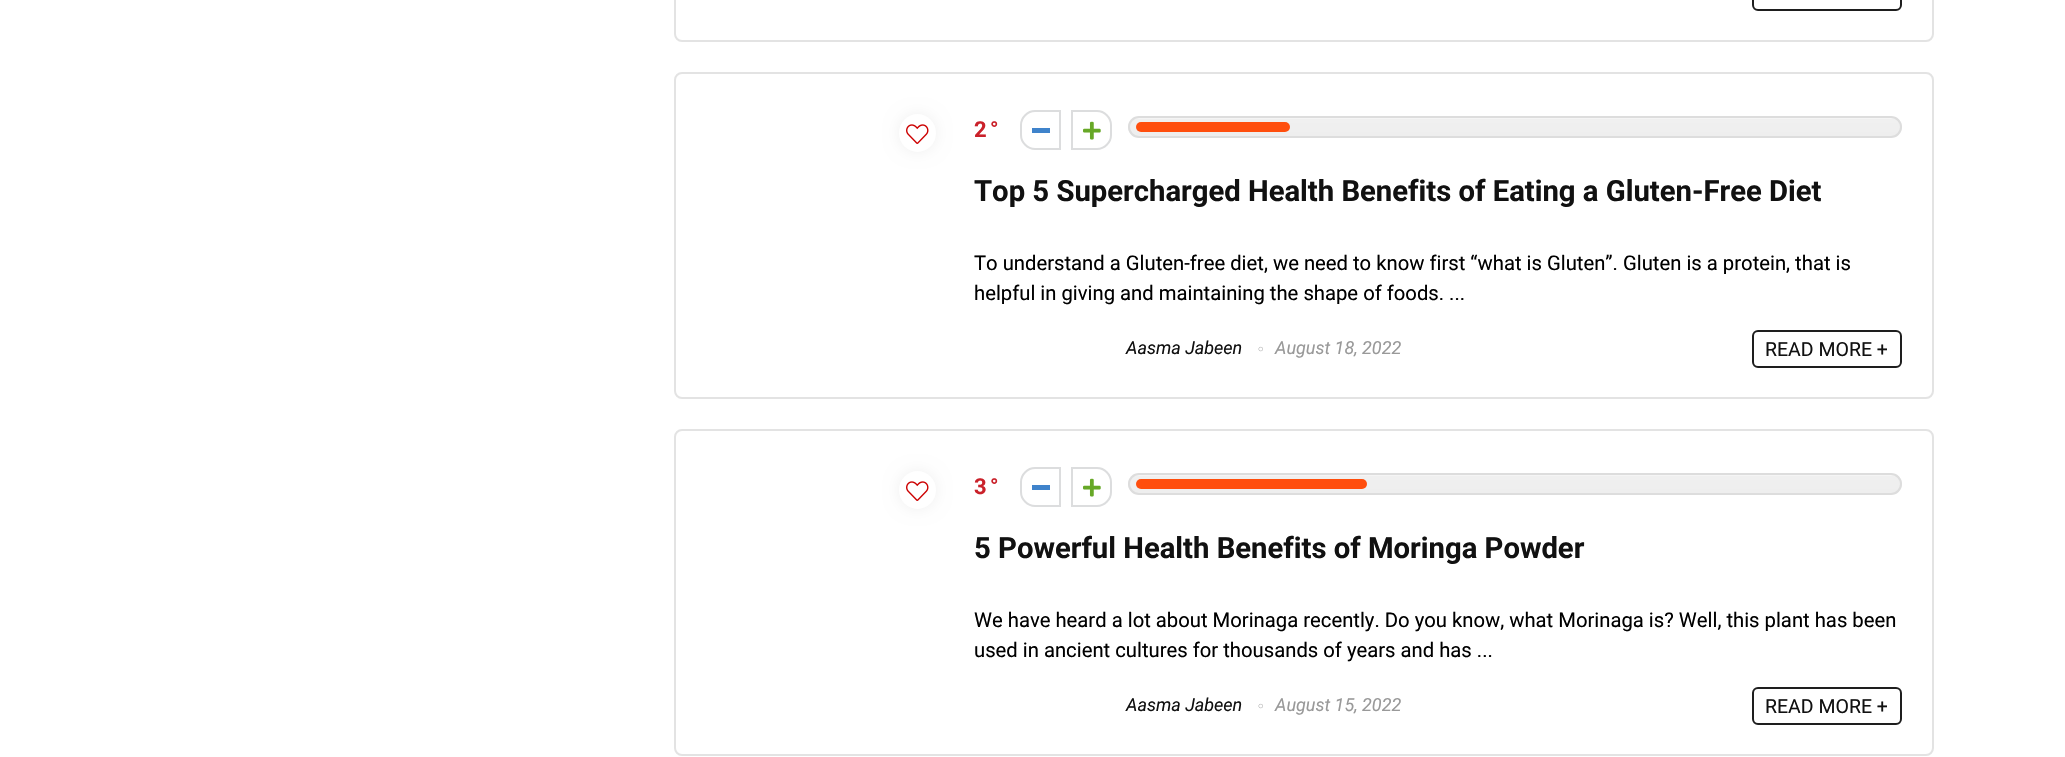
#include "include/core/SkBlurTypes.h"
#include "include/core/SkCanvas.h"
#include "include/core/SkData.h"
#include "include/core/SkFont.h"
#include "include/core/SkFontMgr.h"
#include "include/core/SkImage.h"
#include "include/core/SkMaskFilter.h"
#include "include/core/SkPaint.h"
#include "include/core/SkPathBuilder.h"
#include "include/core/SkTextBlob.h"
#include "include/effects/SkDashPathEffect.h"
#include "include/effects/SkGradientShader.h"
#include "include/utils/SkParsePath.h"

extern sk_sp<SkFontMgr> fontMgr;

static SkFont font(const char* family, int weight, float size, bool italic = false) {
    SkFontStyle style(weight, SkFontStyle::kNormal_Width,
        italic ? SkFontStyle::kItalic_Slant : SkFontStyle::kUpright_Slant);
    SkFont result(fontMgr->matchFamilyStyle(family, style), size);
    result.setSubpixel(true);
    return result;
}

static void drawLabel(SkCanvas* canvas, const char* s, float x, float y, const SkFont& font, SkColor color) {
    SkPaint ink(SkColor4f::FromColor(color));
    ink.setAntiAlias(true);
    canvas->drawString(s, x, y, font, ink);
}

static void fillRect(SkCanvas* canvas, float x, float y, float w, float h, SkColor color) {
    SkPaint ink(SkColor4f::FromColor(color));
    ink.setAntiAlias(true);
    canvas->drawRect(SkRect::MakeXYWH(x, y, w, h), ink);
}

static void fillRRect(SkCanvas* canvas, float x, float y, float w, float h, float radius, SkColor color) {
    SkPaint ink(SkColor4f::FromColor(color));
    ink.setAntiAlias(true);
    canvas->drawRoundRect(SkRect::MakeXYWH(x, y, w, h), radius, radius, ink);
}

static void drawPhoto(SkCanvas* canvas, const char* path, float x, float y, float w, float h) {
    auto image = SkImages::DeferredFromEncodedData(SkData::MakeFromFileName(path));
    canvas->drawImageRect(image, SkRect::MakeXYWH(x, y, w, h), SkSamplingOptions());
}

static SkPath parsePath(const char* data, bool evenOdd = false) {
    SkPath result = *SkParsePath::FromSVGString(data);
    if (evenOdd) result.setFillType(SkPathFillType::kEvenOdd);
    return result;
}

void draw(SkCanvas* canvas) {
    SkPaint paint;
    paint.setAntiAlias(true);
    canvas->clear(0xFFFFFFFF);
    paint.setStroke(true);
    paint.setStrokeWidth(2);
    paint.setColor(0xFFE3E3E3);
    canvas->drawRoundRect(SkRect::MakeXYWH(675, -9, 1258, 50), 7, 7, paint);
    paint.setColor(0xFF1E1E1E);
    canvas->drawRoundRect(SkRect::MakeXYWH(1753, -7, 148, 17), 5, 5, paint);
    paint.setColor(0xFFE3E3E3);
    canvas->drawRoundRect(SkRect::MakeXYWH(675, 73, 1258, 325), 7, 7, paint);
    paint.setStroke(false);
    paint.setColor(0xFFEFEFEF);
    paint.setMaskFilter(SkMaskFilter::MakeBlur(kNormal_SkBlurStyle, 7.5f));
    canvas->drawRoundRect(SkRect::MakeXYWH(899, 114, 37, 38), 18.5f, 18.5f, paint);
    paint.setMaskFilter(nullptr);
    fillRRect(canvas, 899, 114, 37, 38, 18.5f, 0xFFFFFFFF);
    drawPhoto(canvas, "assets/img1.png", 906, 124, 23, 20);
    SkFont font1 = font("Roboto", 700, 22);
    drawLabel(canvas, "2", 974, 137, font1, 0xFFCA212A);
    drawLabel(canvas, "°", 990, 137, font1, 0xFFCA212A);
    paint.setStroke(true);
    paint.setColor(0xFFDCDDDE);
    canvas->drawPath(parsePath("M1035 111H1060V149H1035C1027.5 149 1021 142.5 1021 135V125C1021 117.5 1027.5 111 1035 111Z"), paint);
    fillRect(canvas, 1032, 128, 18, 5, 0xFF3F83CB);
    canvas->drawPath(parsePath("M1072 111H1097C1104.5 111 1111 117.5 1111 125V135C1111 142.5 1104.5 149 1097 149H1072Z"), paint);
    drawPhoto(canvas, "assets/img2.png", 1083, 121, 18, 19);
    canvas->save();
    canvas->clipPath(parsePath("M1139 116H1891C1897 116 1902 121 1902 127C1902 133 1897 138 1891 138H1139C1133 138 1128 133 1128 127C1128 121 1133 116 1139 116Z"), true);
    paint.setStroke(false);
    {
        const SkColor colors[] = {0xFFF5F5F5, 0xFFF0F0F0, 0xFFEEEEEE};
        const float stops[] = {0.08f, 0.08f, 1};
        const SkPoint ends[] = {{1515, 117}, {1515, 137}};
        paint.setShader(SkGradientShader::MakeLinear(ends, colors, stops, 3, SkTileMode::kClamp));
        paint.setAlpha(255);
    }
    canvas->drawRect(SkRect::MakeXYWH(1128, 117, 774, 20), paint);
    canvas->restore();
    paint.setStroke(true);
    paint.setShader(nullptr);
    paint.setColor(0xFFDDDDDD);
    canvas->drawRoundRect(SkRect::MakeXYWH(1129, 117, 772, 20), 10, 10, paint);
    fillRRect(canvas, 1136, 122, 154, 10, 5, 0xFFFF4E0D);
    SkFont font2 = font("Roboto", 700, 29.25f);
    drawLabel(canvas, "Top 5 Supercharged Health Benefits of Eating a Gluten-Free Diet", 974, 201, font2, 0xFF111111);
    SkFont font3 = font("Roboto", 400, 20.25f);
    drawLabel(canvas, "To understand a Gluten-free diet, we need to know first “what is Gluten”. Gluten is a protein, that is", 974, 270, font3, 0xFF000000);
    drawLabel(canvas, "helpful in giving and maintaining the shape of foods. ...", 974, 300, font3, 0xFF000000);
    SkFont font4 = font("Roboto", 400, 18, true);
    drawLabel(canvas, "Aasma Jabeen", 1126, 354, font4, 0xFF111111);
    drawPhoto(canvas, "assets/img3.png", 1258, 346, 5, 6);
    drawLabel(canvas, "August 18, 2022", 1275, 354, font4, 0xFF999999);
    paint.setColor(0xFF1E1E1E);
    canvas->drawRoundRect(SkRect::MakeXYWH(1753, 331, 148, 36), 5, 5, paint);
    SkFont font5 = font("Roboto", 400, 19.5f);
    drawLabel(canvas, "READ MORE +", 1765, 356, font5, 0xFF111111);
    paint.setColor(0xFFE3E3E3);
    canvas->drawRoundRect(SkRect::MakeXYWH(675, 430, 1258, 325), 7, 7, paint);
    paint.setStroke(false);
    paint.setColor(0xFFEFEFEF);
    paint.setMaskFilter(SkMaskFilter::MakeBlur(kNormal_SkBlurStyle, 7.5f));
    canvas->drawRoundRect(SkRect::MakeXYWH(899, 471, 37, 38), 18.5f, 18.5f, paint);
    paint.setMaskFilter(nullptr);
    fillRRect(canvas, 899, 471, 37, 38, 18.5f, 0xFFFFFFFF);
    drawPhoto(canvas, "assets/img1.png", 906, 481, 23, 20);
    drawLabel(canvas, "3", 974, 494, font1, 0xFFCA212A);
    drawLabel(canvas, "°", 990, 494, font1, 0xFFCA212A);
    paint.setStroke(true);
    paint.setColor(0xFFDCDDDE);
    canvas->drawPath(parsePath("M1035 468H1060V506H1035C1027.5 506 1021 499.5 1021 492V482C1021 474.5 1027.5 468 1035 468Z"), paint);
    fillRect(canvas, 1032, 485, 18, 5, 0xFF3F83CB);
    canvas->drawPath(parsePath("M1072 468H1097C1104.5 468 1111 474.5 1111 482V492C1111 499.5 1104.5 506 1097 506H1072Z"), paint);
    drawPhoto(canvas, "assets/img2.png", 1083, 478, 18, 19);
    canvas->save();
    canvas->clipPath(parsePath("M1139 473H1891C1897 473 1902 478 1902 484C1902 490 1897 495 1891 495H1139C1133 495 1128 490 1128 484C1128 478 1133 473 1139 473Z"), true);
    paint.setStroke(false);
    {
        const SkColor colors[] = {0xFFF5F5F5, 0xFFF0F0F0, 0xFFEEEEEE};
        const float stops[] = {0.08f, 0.08f, 1};
        const SkPoint ends[] = {{1515, 474}, {1515, 494}};
        paint.setShader(SkGradientShader::MakeLinear(ends, colors, stops, 3, SkTileMode::kClamp));
        paint.setAlpha(255);
    }
    canvas->drawRect(SkRect::MakeXYWH(1128, 474, 774, 20), paint);
    canvas->restore();
    paint.setStroke(true);
    paint.setShader(nullptr);
    paint.setColor(0xFFDDDDDD);
    canvas->drawRoundRect(SkRect::MakeXYWH(1129, 474, 772, 20), 10, 10, paint);
    fillRRect(canvas, 1136, 479, 231, 10, 5, 0xFFFF4E0D);
    drawLabel(canvas, "5 Powerful Health Benefits of Moringa Powder", 974, 558, font2, 0xFF111111);
    drawLabel(canvas, "We have heard a lot about Morinaga recently. Do you know, what Morinaga is? Well, this plant has been", 974, 627, font3, 0xFF000000);
    drawLabel(canvas, "used in ancient cultures for thousands of years and has ...", 974, 657, font3, 0xFF000000);
    drawLabel(canvas, "Aasma Jabeen", 1126, 711, font4, 0xFF111111);
    drawPhoto(canvas, "assets/img3.png", 1258, 703, 5, 6);
    drawLabel(canvas, "August 15, 2022", 1275, 711, font4, 0xFF999999);
    paint.setColor(0xFF1E1E1E);
    canvas->drawRoundRect(SkRect::MakeXYWH(1753, 688, 148, 36), 5, 5, paint);
    drawLabel(canvas, "READ MORE +", 1765, 713, font5, 0xFF111111);
}
